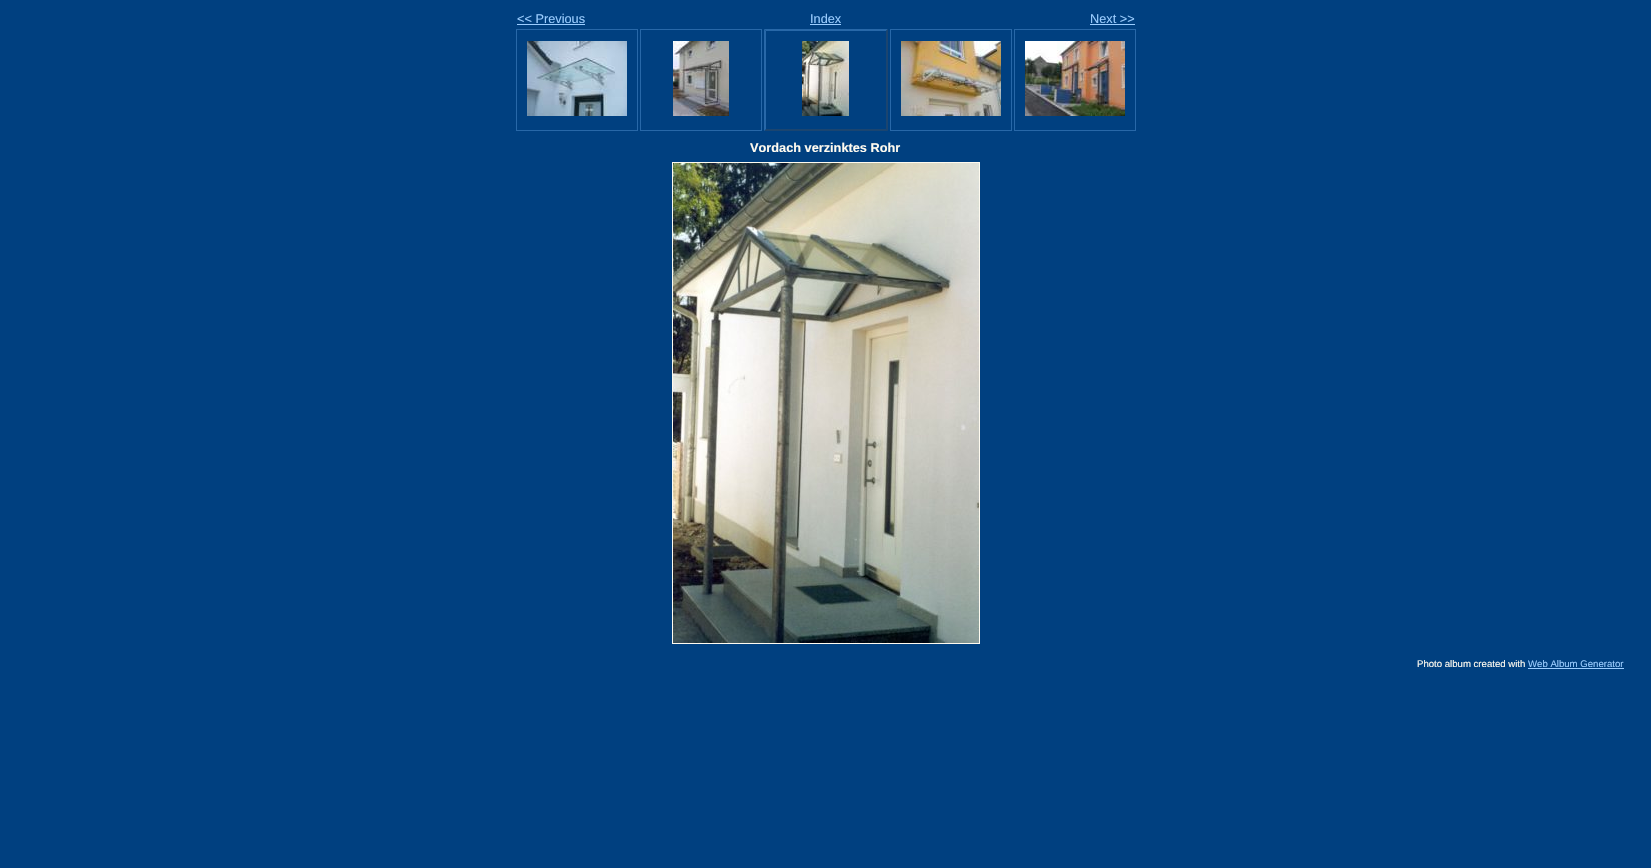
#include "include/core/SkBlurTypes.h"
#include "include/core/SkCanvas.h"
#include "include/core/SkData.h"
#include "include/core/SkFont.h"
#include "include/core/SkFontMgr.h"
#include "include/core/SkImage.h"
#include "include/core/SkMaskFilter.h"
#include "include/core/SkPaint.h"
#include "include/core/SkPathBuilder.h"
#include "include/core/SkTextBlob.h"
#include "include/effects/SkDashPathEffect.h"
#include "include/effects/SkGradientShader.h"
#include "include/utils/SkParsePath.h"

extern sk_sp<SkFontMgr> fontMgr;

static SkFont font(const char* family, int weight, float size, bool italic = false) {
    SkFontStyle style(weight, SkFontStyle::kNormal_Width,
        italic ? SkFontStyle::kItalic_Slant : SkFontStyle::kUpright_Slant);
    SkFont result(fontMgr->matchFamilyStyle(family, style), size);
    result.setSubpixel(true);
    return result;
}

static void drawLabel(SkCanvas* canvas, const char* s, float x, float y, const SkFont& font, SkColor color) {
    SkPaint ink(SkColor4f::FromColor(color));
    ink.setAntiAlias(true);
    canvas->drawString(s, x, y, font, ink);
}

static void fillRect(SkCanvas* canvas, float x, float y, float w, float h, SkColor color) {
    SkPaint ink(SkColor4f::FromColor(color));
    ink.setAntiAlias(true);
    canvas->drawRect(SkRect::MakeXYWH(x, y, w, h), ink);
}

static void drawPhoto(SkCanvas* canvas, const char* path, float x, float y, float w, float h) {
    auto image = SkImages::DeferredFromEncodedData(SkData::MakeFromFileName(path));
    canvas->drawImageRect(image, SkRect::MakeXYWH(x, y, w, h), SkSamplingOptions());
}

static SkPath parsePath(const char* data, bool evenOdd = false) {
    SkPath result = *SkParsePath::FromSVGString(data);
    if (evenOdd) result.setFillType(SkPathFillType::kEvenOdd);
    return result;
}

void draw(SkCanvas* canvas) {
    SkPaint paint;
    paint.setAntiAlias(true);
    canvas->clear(0xFF004080);
    SkFont font1 = font("Liberation Sans", 400, 12.75f);
    drawLabel(canvas, "<< Previous", 517, 23, font1, 0xFF9BCDFF);
    fillRect(canvas, 517, 24, 68, 1, 0xFF9BCDFF);
    drawLabel(canvas, "Index", 810, 23, font1, 0xFF9BCDFF);
    fillRect(canvas, 810, 24, 31, 1, 0xFF9BCDFF);
    drawLabel(canvas, "Next >>", 1090, 23, font1, 0xFF9BCDFF);
    fillRect(canvas, 1090, 24, 45, 1, 0xFF9BCDFF);
    paint.setStroke(true);
    paint.setStrokeWidth(1);
    paint.setColor(0xFF2868A8);
    canvas->drawRect(SkRect::MakeXYWH(516.5f, 29.5f, 121, 101), paint);
    drawPhoto(canvas, "assets/img1.png", 527, 41, 100, 75);
    canvas->drawRect(SkRect::MakeXYWH(640.5f, 29.5f, 121, 101), paint);
    drawPhoto(canvas, "assets/img2.png", 673, 41, 56, 75);
    paint.setStroke(false);
    canvas->drawPath(parsePath("M764 29H888L886 31H766Z"), paint);
    paint.setColor(0xFF1B4570);
    canvas->drawPath(parsePath("M888 29V131L886 129V31Z"), paint);
    canvas->drawPath(parsePath("M888 131H764L766 129H886Z"), paint);
    paint.setColor(0xFF2868A8);
    canvas->drawPath(parsePath("M764 131V29L766 31V129Z"), paint);
    drawPhoto(canvas, "assets/img3.png", 802, 41, 47, 75);
    paint.setStroke(true);
    canvas->drawRect(SkRect::MakeXYWH(890.5f, 29.5f, 121, 101), paint);
    drawPhoto(canvas, "assets/img4.png", 901, 41, 100, 75);
    canvas->drawRect(SkRect::MakeXYWH(1014.5f, 29.5f, 121, 101), paint);
    drawPhoto(canvas, "assets/img5.png", 1025, 41, 100, 75);
    SkFont font2 = font("Liberation Sans", 700, 12.75f);
    drawLabel(canvas, "Vordach verzinktes Rohr", 750, 152, font2, 0xFFFFFBF0);
    paint.setColor(0xFFFFFBF0);
    canvas->drawRect(SkRect::MakeXYWH(672.5f, 162.5f, 307, 481), paint);
    drawPhoto(canvas, "assets/img6.png", 673, 163, 306, 480);
    SkFont font3 = font("Liberation Sans", 400, 9.6f);
    drawLabel(canvas, "Photo album created with", 1417, 667, font3, 0xFFFFFBF0);
    drawLabel(canvas, "Web Album Generator", 1528, 667, font3, 0xFF9BCDFF);
    fillRect(canvas, 1528, 668, 96, 1, 0xFF9BCDFF);
}
